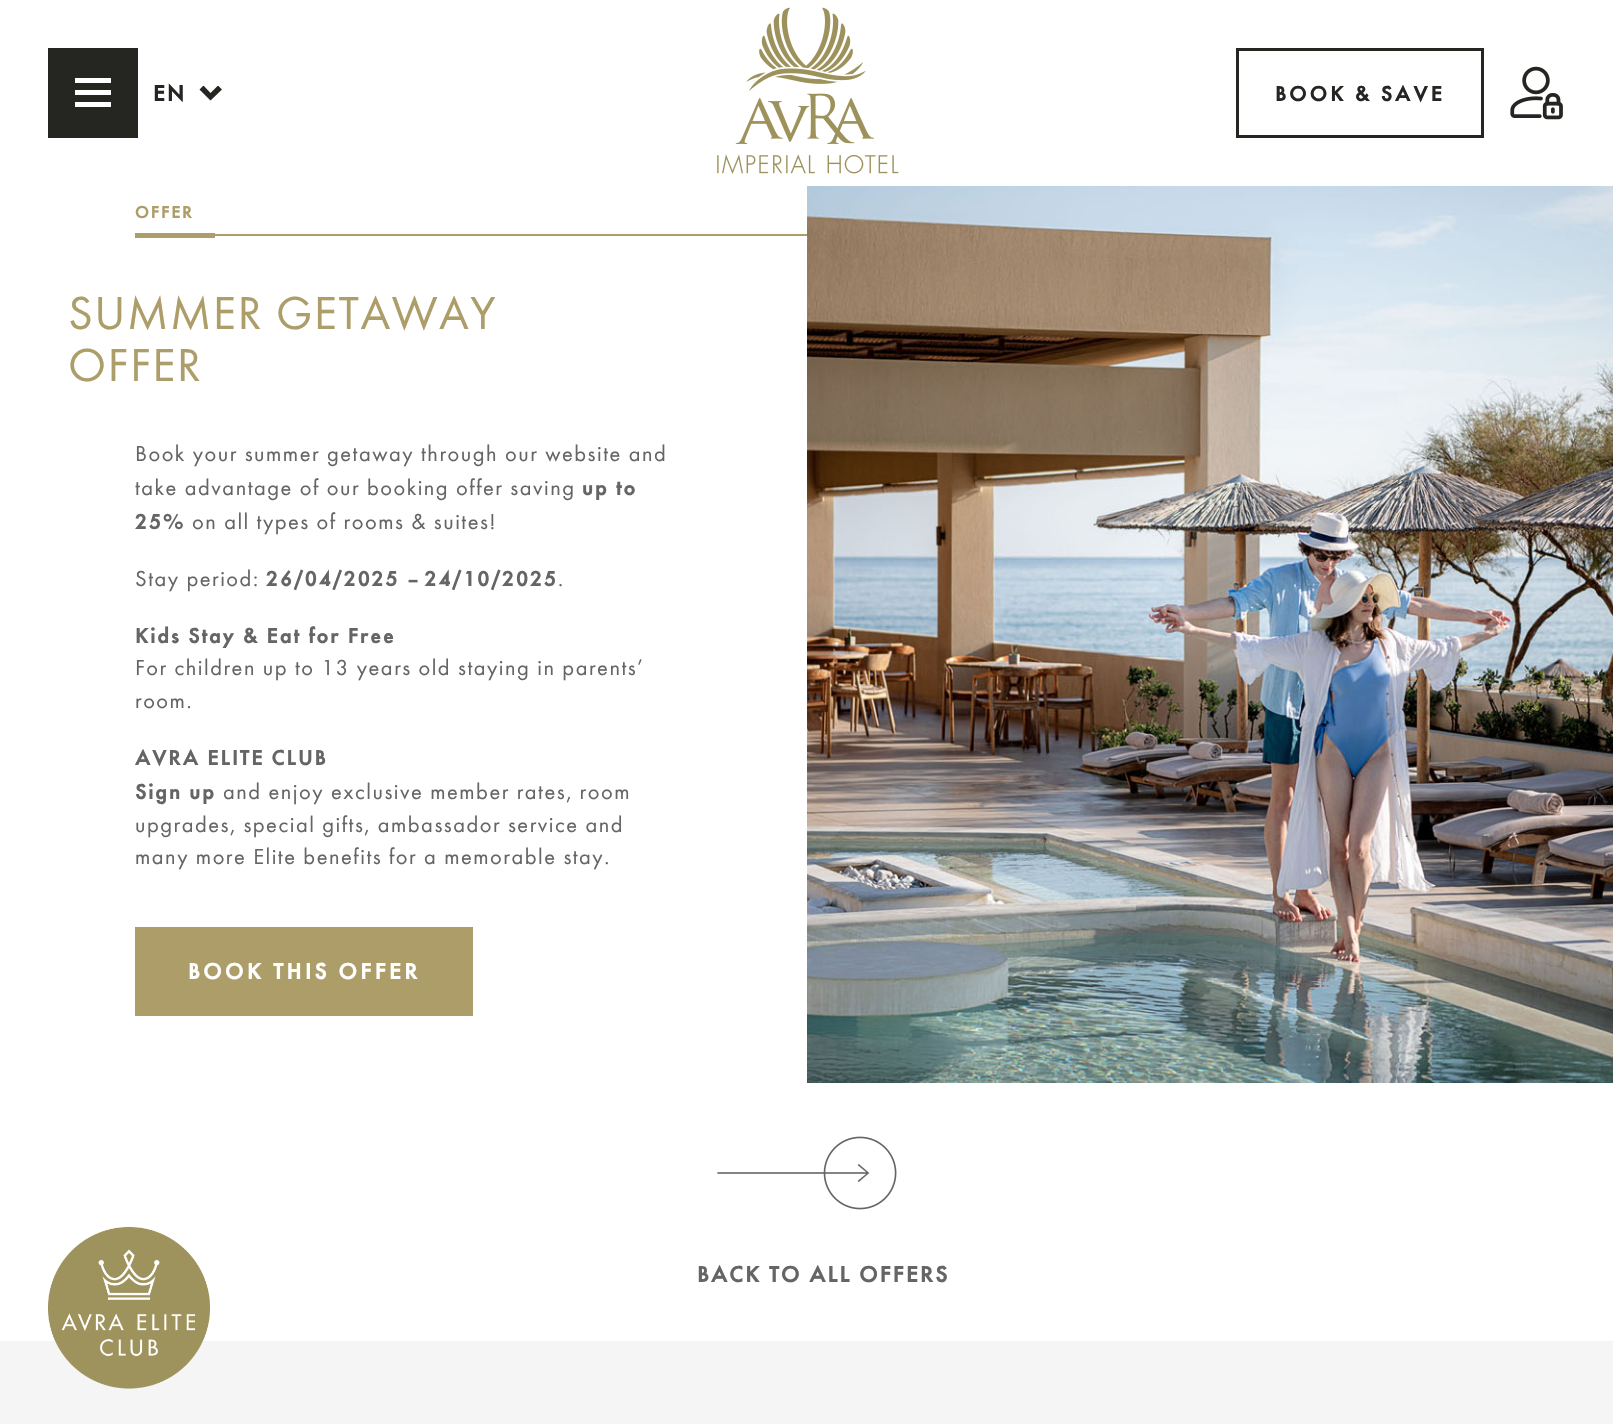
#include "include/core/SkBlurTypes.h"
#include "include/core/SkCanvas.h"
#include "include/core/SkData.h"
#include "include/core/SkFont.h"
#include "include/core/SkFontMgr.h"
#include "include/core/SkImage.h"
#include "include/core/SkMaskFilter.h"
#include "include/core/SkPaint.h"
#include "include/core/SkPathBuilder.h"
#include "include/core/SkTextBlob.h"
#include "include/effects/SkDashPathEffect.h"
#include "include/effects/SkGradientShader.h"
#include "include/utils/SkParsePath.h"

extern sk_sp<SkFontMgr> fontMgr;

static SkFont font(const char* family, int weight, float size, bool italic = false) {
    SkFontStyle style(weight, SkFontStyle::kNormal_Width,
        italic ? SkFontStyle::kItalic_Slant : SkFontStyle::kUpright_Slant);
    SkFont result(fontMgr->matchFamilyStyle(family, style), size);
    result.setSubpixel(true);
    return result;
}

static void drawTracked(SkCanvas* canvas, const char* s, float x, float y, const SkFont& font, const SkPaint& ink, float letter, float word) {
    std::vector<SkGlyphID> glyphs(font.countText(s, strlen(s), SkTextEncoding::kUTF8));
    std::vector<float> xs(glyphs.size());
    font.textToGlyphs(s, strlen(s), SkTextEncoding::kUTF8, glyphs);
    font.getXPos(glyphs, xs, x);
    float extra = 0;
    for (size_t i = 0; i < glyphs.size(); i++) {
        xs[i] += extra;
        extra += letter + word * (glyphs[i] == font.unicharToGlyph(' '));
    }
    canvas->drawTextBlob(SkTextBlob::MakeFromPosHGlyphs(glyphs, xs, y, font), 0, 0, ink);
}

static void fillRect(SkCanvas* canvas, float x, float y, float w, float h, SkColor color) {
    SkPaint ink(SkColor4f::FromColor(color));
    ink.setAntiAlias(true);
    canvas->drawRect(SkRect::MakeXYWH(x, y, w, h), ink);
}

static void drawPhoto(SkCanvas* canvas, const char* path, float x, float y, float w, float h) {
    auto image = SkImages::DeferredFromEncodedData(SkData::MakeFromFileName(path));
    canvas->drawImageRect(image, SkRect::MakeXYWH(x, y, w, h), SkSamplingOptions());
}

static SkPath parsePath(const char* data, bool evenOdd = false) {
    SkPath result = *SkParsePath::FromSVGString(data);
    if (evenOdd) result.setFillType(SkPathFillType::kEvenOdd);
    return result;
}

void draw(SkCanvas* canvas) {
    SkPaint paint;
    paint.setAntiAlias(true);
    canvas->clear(0xFFFFFFFF);
    fillRect(canvas, 48, 48, 90, 90, 0xFF252522);
    fillRect(canvas, 75, 78, 36, 5, 0xFFFFFFFF);
    fillRect(canvas, 75, 90, 36, 5, 0xFFFFFFFF);
    fillRect(canvas, 75, 102, 36, 5, 0xFFFFFFFF);
    SkFont font1 = font("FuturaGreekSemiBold", 600, 24);
    paint.setColor(0xFF252522);
    drawTracked(canvas, "EN", 153, 101, font1, paint, 1.5f, 0);
    canvas->save();
    canvas->clipRect(SkRect::MakeXYWH(198, 86, 26, 15));
    canvas->drawPath(parsePath("M199.5 89.5L203.5 85.5L210.5 93L218 85.5L222 89.5L210.5 100.5Z"), paint);
    canvas->restore();
    drawPhoto(canvas, "assets/img1.png", 717, 7, 182, 167);
    paint.setStroke(true);
    paint.setStrokeWidth(3);
    canvas->drawRect(SkRect::MakeXYWH(1237.5f, 49.5f, 245, 87), paint);
    SkFont font2 = font("FuturaGreekSemiBold", 600, 22.5f);
    paint.setStroke(false);
    drawTracked(canvas, "BOOK & SAVE", 1275, 101, font2, paint, 2.6f, 0);
    drawPhoto(canvas, "assets/img2.png", 1510, 66, 53, 54);
    fillRect(canvas, 215, 234, 592, 2, 0xFFAC9D69);
    SkFont font3 = font("FuturaGreekSemiBold", 600, 18);
    paint.setColor(0xFFAC9D69);
    drawTracked(canvas, "OFFER", 135, 218, font3, paint, 1.5f, 0);
    fillRect(canvas, 135, 233, 80, 5, 0xFFAC9D69);
    SkFont font4 = font("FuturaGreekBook", 400, 48);
    drawTracked(canvas, "SUMMER GETAWAY", 68, 329, font4, paint, 1.5f, 0);
    drawTracked(canvas, "OFFER", 68, 381, font4, paint, 1.5f, 0);
    SkFont font5 = font("FuturaGreekBook", 400, 22.5f);
    paint.setColor(0xFF656565);
    drawTracked(canvas, "Book your summer getaway through our website and", 135, 461, font5, paint, 1.5f, 0);
    drawTracked(canvas, "take advantage of our booking offer saving", 135, 495, font5, paint, 1.5f, 0);
    drawTracked(canvas, "up to", 582, 495, font2, paint, 1.5f, 0);
    drawTracked(canvas, "25%", 135, 529, font2, paint, 1.5f, 0);
    drawTracked(canvas, "on all types of rooms & suites!", 192, 529, font5, paint, 1.5f, 0);
    drawTracked(canvas, "Stay period:", 135, 586, font5, paint, 1.5f, 0);
    drawTracked(canvas, "26/04/2025 – 24/10/2025", 266, 586, font2, paint, 1.5f, 0);
    drawTracked(canvas, ".", 558, 586, font5, paint, 1.5f, 0);
    drawTracked(canvas, "Kids Stay & Eat for Free", 135, 643, font2, paint, 1.5f, 0);
    drawTracked(canvas, "For children up to 13 years old staying in parents’", 135, 675, font5, paint, 1.5f, 0);
    drawTracked(canvas, "room.", 135, 708, font5, paint, 1.5f, 0);
    drawTracked(canvas, "AVRA ELITE CLUB", 135, 765, font2, paint, 1.5f, 0);
    drawTracked(canvas, "Sign up", 135, 799, font2, paint, 1.5f, 0);
    drawTracked(canvas, "and enjoy exclusive member rates, room", 223, 799, font5, paint, 1.5f, 0);
    drawTracked(canvas, "upgrades, special gifts, ambassador service and", 135, 832, font5, paint, 1.5f, 0);
    drawTracked(canvas, "many more Elite benefits for a memorable stay.", 135, 864, font5, paint, 1.5f, 0);
    fillRect(canvas, 135, 927, 338, 89, 0xFFAC9D69);
    paint.setColor(0xFFFFFFFF);
    drawTracked(canvas, "BOOK THIS OFFER", 188, 979, font1, paint, 2.75f, 0);
    drawPhoto(canvas, "assets/img3.png", 807, 186, 806, 897);
    drawPhoto(canvas, "assets/img4.png", 717, 1136, 180, 74);
    paint.setColor(0xFF656565);
    drawTracked(canvas, "BACK TO ALL OFFERS", 697, 1282, font1, paint, 1.5f, 0);
    fillRect(canvas, 0, 1341, 1613, 83, 0xFFF5F5F5);
    drawPhoto(canvas, "assets/img5.png", 48, 1226, 162, 163);
}
